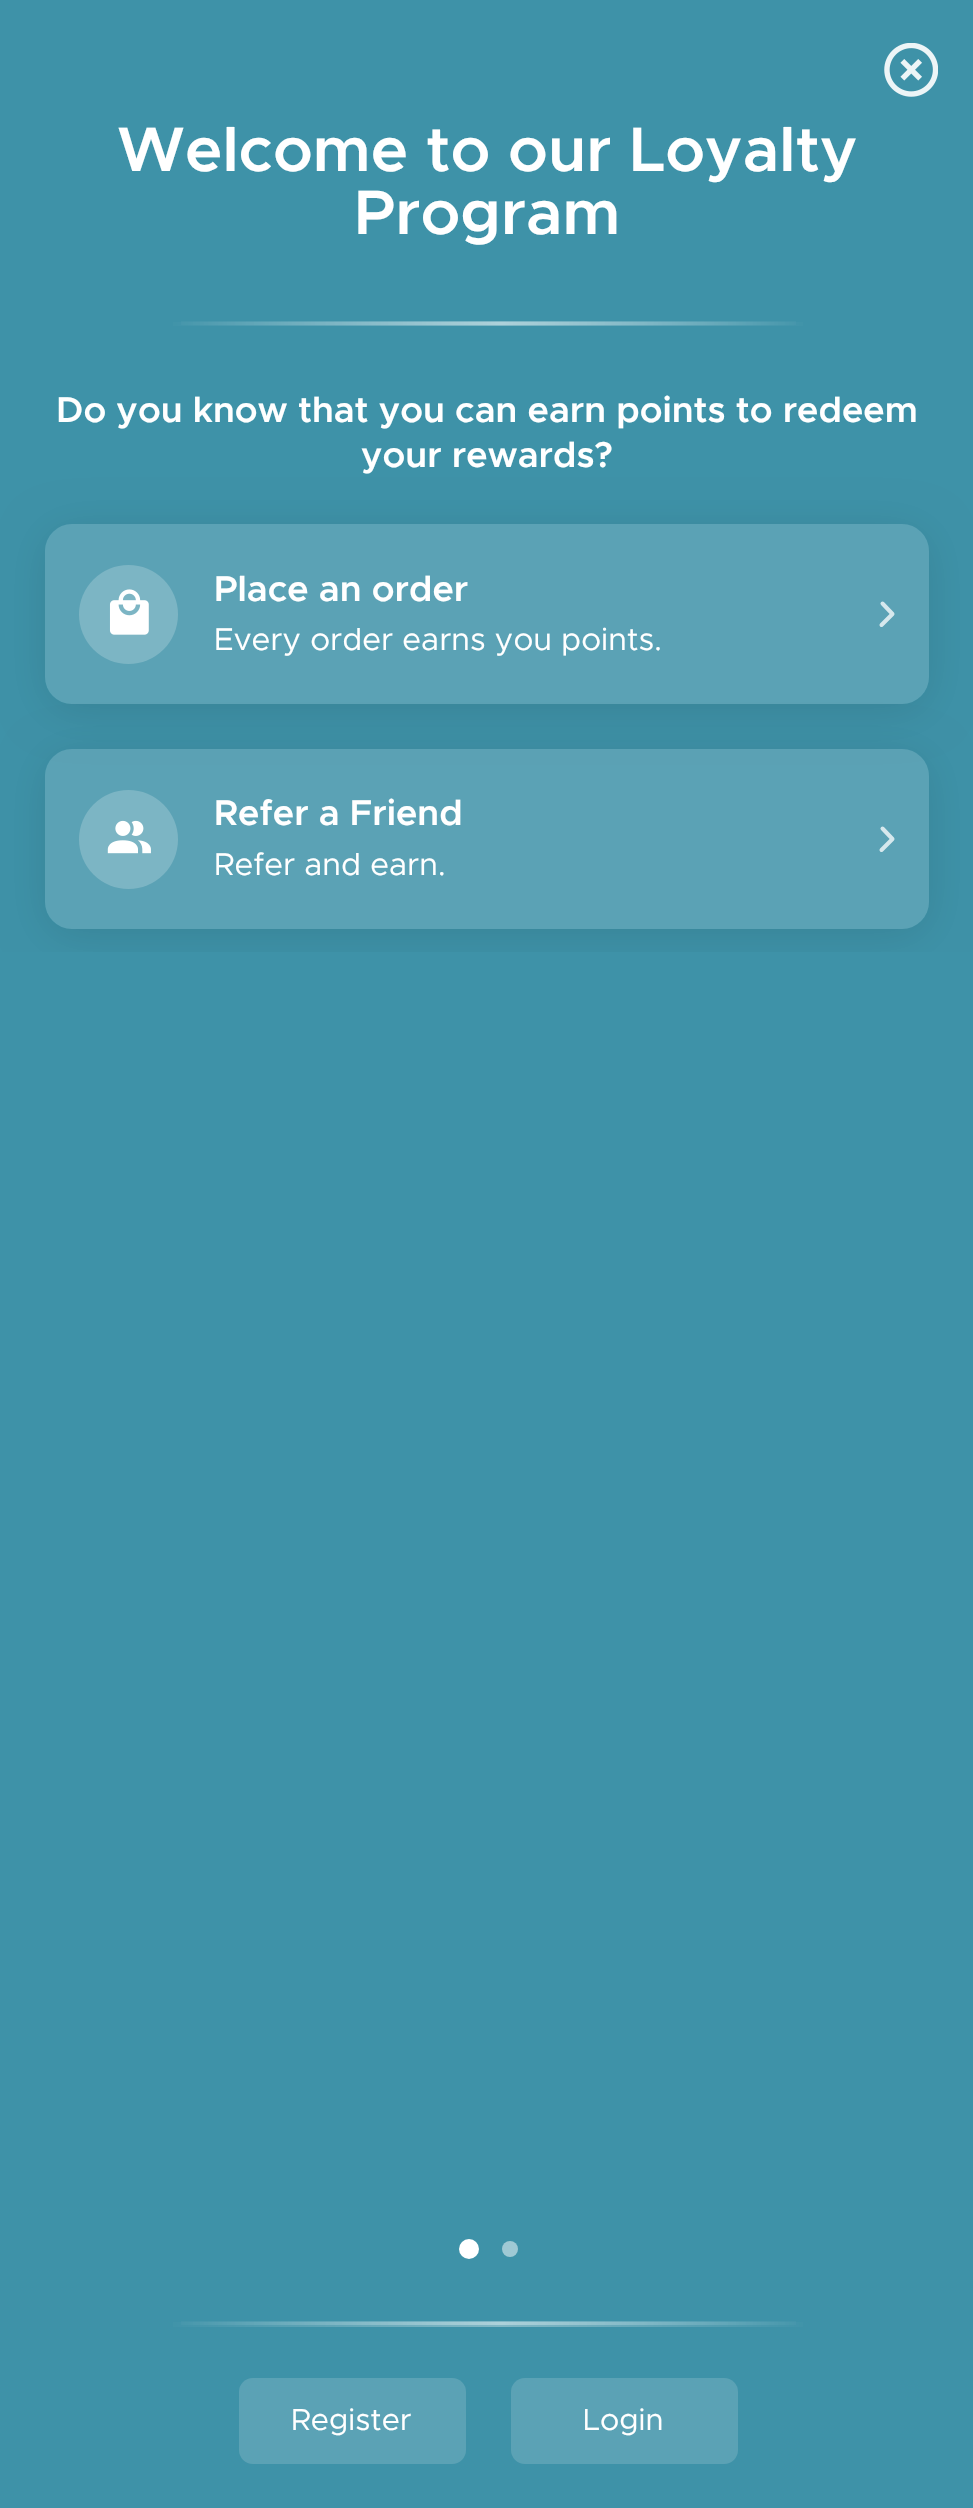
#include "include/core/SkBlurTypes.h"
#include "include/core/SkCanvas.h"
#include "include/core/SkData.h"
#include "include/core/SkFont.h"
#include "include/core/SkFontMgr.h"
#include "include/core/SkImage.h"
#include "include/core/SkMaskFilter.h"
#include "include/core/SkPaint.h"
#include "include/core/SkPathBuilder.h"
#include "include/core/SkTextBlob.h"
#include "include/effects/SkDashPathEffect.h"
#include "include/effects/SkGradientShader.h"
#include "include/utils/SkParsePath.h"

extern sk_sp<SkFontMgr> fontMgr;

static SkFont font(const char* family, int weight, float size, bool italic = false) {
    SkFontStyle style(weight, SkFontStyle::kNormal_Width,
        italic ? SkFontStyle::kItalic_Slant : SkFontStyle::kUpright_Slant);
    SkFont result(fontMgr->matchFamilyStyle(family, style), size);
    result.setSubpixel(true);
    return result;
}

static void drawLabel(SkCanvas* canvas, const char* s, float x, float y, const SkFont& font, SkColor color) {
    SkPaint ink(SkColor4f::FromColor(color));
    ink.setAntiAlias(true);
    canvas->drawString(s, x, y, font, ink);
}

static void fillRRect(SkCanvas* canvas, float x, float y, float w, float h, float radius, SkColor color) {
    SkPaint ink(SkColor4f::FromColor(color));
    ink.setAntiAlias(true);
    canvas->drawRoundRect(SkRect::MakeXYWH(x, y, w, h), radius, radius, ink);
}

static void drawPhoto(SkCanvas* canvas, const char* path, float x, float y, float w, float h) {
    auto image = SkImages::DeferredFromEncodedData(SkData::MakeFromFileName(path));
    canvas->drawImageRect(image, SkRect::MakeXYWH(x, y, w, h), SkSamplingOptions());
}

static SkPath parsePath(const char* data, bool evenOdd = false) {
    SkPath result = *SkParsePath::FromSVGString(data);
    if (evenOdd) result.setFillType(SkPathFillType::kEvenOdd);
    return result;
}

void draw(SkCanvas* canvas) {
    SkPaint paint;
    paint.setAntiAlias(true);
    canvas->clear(0xFF3E92A8);
    drawPhoto(canvas, "assets/img1.png", 884, 43, 54, 54);
    SkFont font1 = font("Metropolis", 600, 63);
    drawLabel(canvas, "Welcome to our Loyalty", 117, 171, font1, 0xFFFFFFFF);
    drawLabel(canvas, "Program", 354, 234, font1, 0xFFFFFFFF);
    {
        const SkColor colors[] = {0xFF3E92A8, 0xFF81B8C6, 0xFF3E92A8};
        const float stops[] = {0, 0.52f, 1};
        const SkPoint ends[] = {{160, 324}, {815, 324}};
        paint.setShader(SkGradientShader::MakeLinear(ends, colors, stops, 3, SkTileMode::kClamp));
        paint.setAlpha(255);
    }
    canvas->drawRect(SkRect::MakeXYWH(173, 322, 630, 4), paint);
    {
        const SkColor colors[] = {0x00FFFFFF, 0x59FFFFFF, 0x00FFFFFF};
        const float stops[] = {0, 0.52f, 1};
        const SkPoint ends[] = {{160, 323}, {815, 323}};
        paint.setShader(SkGradientShader::MakeLinear(ends, colors, stops, 3, SkTileMode::kClamp));
        paint.setAlpha(255);
    }
    canvas->drawRect(SkRect::MakeXYWH(181, 321, 615, 4), paint);
    SkFont font2 = font("Metropolis", 600, 36);
    drawLabel(canvas, "Do you know that you can earn points to redeem", 56, 422, font2, 0xFFFFFFFF);
    drawLabel(canvas, "your rewards?", 361, 467, font2, 0xFFFFFFFF);
    canvas->save();
    canvas->clipPath(parsePath("M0 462H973V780H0ZM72 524H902C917 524 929 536 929 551V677C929 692 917 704 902 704H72C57 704 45 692 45 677V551C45 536 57 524 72 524Z", true), true);
    paint.setShader(nullptr);
    paint.setColor(0x1A000000);
    paint.setMaskFilter(SkMaskFilter::MakeBlur(kNormal_SkBlurStyle, 22.5f));
    canvas->drawRoundRect(SkRect::MakeXYWH(45, 531, 884, 180), 27, 27, paint);
    paint.setMaskFilter(nullptr);
    canvas->restore();
    fillRRect(canvas, 45, 524, 884, 180, 27, 0x26FFFFFF);
    paint.setColor(0xFF7CB5C4);
    canvas->drawCircle(128.5f, 614.5f, 49.5f, paint);
    drawPhoto(canvas, "assets/img2.png", 109, 589, 40, 46);
    drawLabel(canvas, "Place an order", 214, 601, font2, 0xFFFFFFFF);
    SkFont font3 = font("Metropolis", 400, 31.5f);
    drawLabel(canvas, "Every order earns you points.", 214, 650, font3, 0xFFFFFFFF);
    paint.setStroke(true);
    paint.setStrokeWidth(4);
    paint.setStrokeCap(SkPaint::kRound_Cap);
    paint.setStrokeJoin(SkPaint::kRound_Join);
    paint.setColor(0xFFD6E8ED);
    canvas->drawPath(parsePath("M882.5 603.5L892.5 614L881.5 625"), paint);
    canvas->save();
    canvas->clipRect(SkRect::MakeXYWH(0, 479, 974, 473));
    canvas->clipPath(parsePath("M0 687H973V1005H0ZM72 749H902C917 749 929 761 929 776V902C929 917 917 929 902 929H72C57 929 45 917 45 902V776C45 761 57 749 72 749Z", true), true);
    paint.setStroke(false);
    paint.setColor(0x1A000000);
    paint.setMaskFilter(SkMaskFilter::MakeBlur(kNormal_SkBlurStyle, 22.5f));
    canvas->drawRoundRect(SkRect::MakeXYWH(45, 756, 884, 180), 27, 27, paint);
    paint.setMaskFilter(nullptr);
    canvas->restore();
    fillRRect(canvas, 45, 749, 884, 180, 27, 0x26FFFFFF);
    paint.setColor(0xFF7CB5C4);
    canvas->drawCircle(128.5f, 839.5f, 49.5f, paint);
    drawPhoto(canvas, "assets/img3.png", 107, 820, 44, 34);
    drawLabel(canvas, "Refer a Friend", 214, 825, font2, 0xFFFFFFFF);
    drawLabel(canvas, "Refer and earn.", 214, 875, font3, 0xFFFFFFFF);
    paint.setStroke(true);
    paint.setColor(0xFFD6E8ED);
    canvas->drawPath(parsePath("M882.5 828.5L892.5 839L881.5 850"), paint);
    paint.setStroke(false);
    paint.setColor(0xFFFFFFFF);
    canvas->drawCircle(469, 2249, 10, paint);
    paint.setColor(0xFF9FC9D4);
    canvas->drawCircle(510, 2249, 8, paint);
    {
        const SkColor colors[] = {0xFF3E92A8, 0xFF81B8C6, 0xFF3E92A8};
        const float stops[] = {0, 0.52f, 1};
        const SkPoint ends[] = {{160, 2324}, {815, 2324}};
        paint.setShader(SkGradientShader::MakeLinear(ends, colors, stops, 3, SkTileMode::kClamp));
        paint.setAlpha(255);
    }
    canvas->drawRect(SkRect::MakeXYWH(173, 2322, 630, 5), paint);
    {
        const SkColor colors[] = {0x00FFFFFF, 0x59FFFFFF, 0x00FFFFFF};
        const float stops[] = {0, 0.52f, 1};
        const SkPoint ends[] = {{160, 2323}, {815, 2323}};
        paint.setShader(SkGradientShader::MakeLinear(ends, colors, stops, 3, SkTileMode::kClamp));
        paint.setAlpha(255);
    }
    canvas->drawRect(SkRect::MakeXYWH(181, 2321, 615, 4), paint);
    fillRRect(canvas, 239, 2378, 227, 86, 14, 0xFF5BA2B5);
    SkFont font4 = font("Metropolis", 400, 30.5f);
    drawLabel(canvas, "Register", 291, 2430, font4, 0xFFFFFFFF);
    fillRRect(canvas, 511, 2378, 227, 86, 14, 0xFF5BA2B5);
    drawLabel(canvas, "Login", 583, 2430, font4, 0xFFFFFFFF);
}
